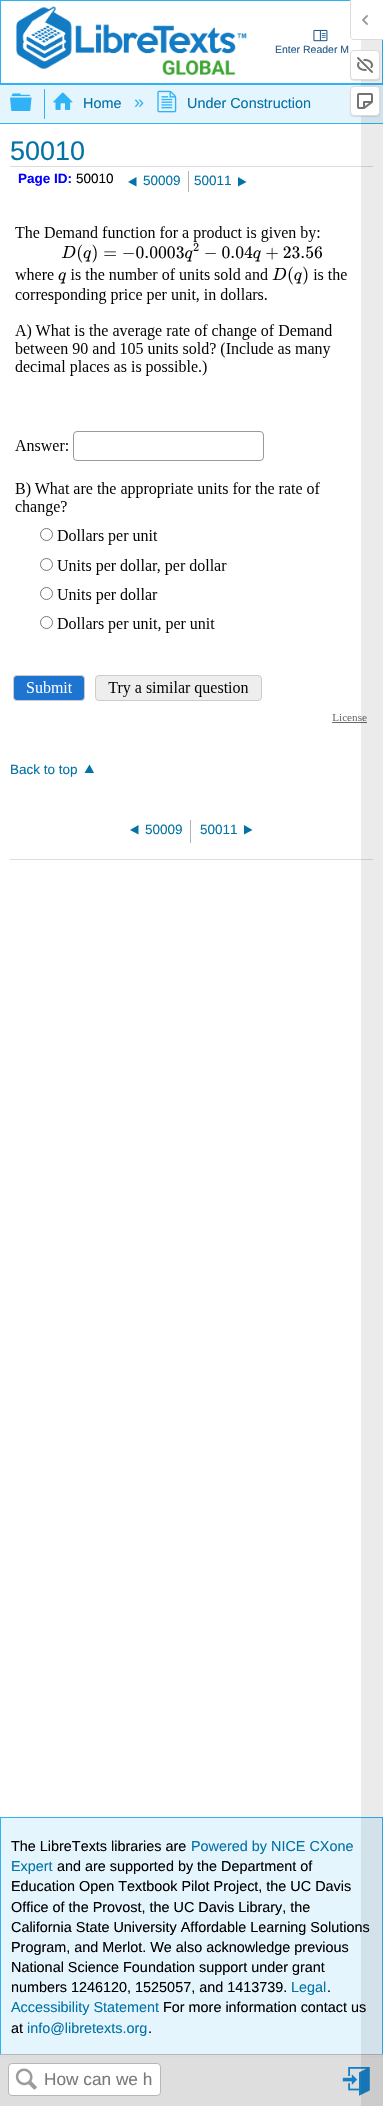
#include "include/core/SkBlurTypes.h"
#include "include/core/SkCanvas.h"
#include "include/core/SkData.h"
#include "include/core/SkFont.h"
#include "include/core/SkFontMgr.h"
#include "include/core/SkImage.h"
#include "include/core/SkMaskFilter.h"
#include "include/core/SkPaint.h"
#include "include/core/SkPathBuilder.h"
#include "include/core/SkTextBlob.h"
#include "include/effects/SkDashPathEffect.h"
#include "include/effects/SkGradientShader.h"
#include "include/utils/SkParsePath.h"

extern sk_sp<SkFontMgr> fontMgr;

static SkFont font(const char* family, int weight, float size, bool italic = false) {
    SkFontStyle style(weight, SkFontStyle::kNormal_Width,
        italic ? SkFontStyle::kItalic_Slant : SkFontStyle::kUpright_Slant);
    SkFont result(fontMgr->matchFamilyStyle(family, style), size);
    result.setSubpixel(true);
    return result;
}

static void drawLabel(SkCanvas* canvas, const char* s, float x, float y, const SkFont& font, SkColor color) {
    SkPaint ink(SkColor4f::FromColor(color));
    ink.setAntiAlias(true);
    canvas->drawString(s, x, y, font, ink);
}

static void fillRect(SkCanvas* canvas, float x, float y, float w, float h, SkColor color) {
    SkPaint ink(SkColor4f::FromColor(color));
    ink.setAntiAlias(true);
    canvas->drawRect(SkRect::MakeXYWH(x, y, w, h), ink);
}

static void drawPhoto(SkCanvas* canvas, const char* path, float x, float y, float w, float h) {
    auto image = SkImages::DeferredFromEncodedData(SkData::MakeFromFileName(path));
    canvas->drawImageRect(image, SkRect::MakeXYWH(x, y, w, h), SkSamplingOptions());
}

static SkPath parsePath(const char* data, bool evenOdd = false) {
    SkPath result = *SkParsePath::FromSVGString(data);
    if (evenOdd) result.setFillType(SkPathFillType::kEvenOdd);
    return result;
}

void draw(SkCanvas* canvas) {
    SkPaint paint;
    paint.setAntiAlias(true);
    canvas->clear(0xFFFFFFFF);
    paint.setStroke(true);
    paint.setStrokeWidth(1);
    paint.setColor(0xFF30B3F6);
    canvas->drawRect(SkRect::MakeXYWH(0.5f, 0.5f, 382, 83), paint);
    fillRect(canvas, 0, 85, 383, 38, 0xFFE5F5FE);
    fillRect(canvas, 0, 84, 383, 1, 0xFF30B3F6);
    fillRect(canvas, 0, 123, 383, 1, 0xFF30B3F6);
    paint.setStroke(false);
    paint.setColor(0xFFE5F5FE);
    canvas->drawRect(SkRect::MakeXYWH(0.5f, 1817.5f, 382, 239), paint);
    paint.setStroke(true);
    paint.setColor(0xFF30B3F6);
    canvas->drawRect(SkRect::MakeXYWH(0.5f, 1817.5f, 382, 239), paint);
    fillRect(canvas, 0, 2055, 383, 51, 0xF7DDDDDD);
    fillRect(canvas, 0, 2054, 383, 1, 0xF7B4B4B4);
    drawPhoto(canvas, "assets/img10.png", 342, 2067, 28, 29);
    fillRect(canvas, 10, 166, 363, 1, 0xFFDDDDDD);
    drawPhoto(canvas, "assets/img11.png", 13, 226, 354, 497);
    fillRect(canvas, 10, 859, 363, 1, 0xFFDDDDDD);
    fillRect(canvas, 361, 40, 22, 2066, 0x14000000);
    paint.setStroke(false);
    paint.setColor(0xFFFFFFFF);
    canvas->drawPath(parsePath("M351 0H383V39H354C352.5 39 351 37.5 351 36Z"), paint);
    paint.setColor(0xFFDBDBDB);
    canvas->drawPath(parsePath("M350 0H383V40H354C352 40 350 38 350 36ZM351 0H383V39H354C352 39 351 38 351 36Z", true), paint);
    drawPhoto(canvas, "assets/img1.png", 362, 15, 6, 10);
    paint.setColor(0x1A000000);
    paint.setMaskFilter(SkMaskFilter::MakeBlur(kNormal_SkBlurStyle, 0.5f));
    canvas->drawRoundRect(SkRect::MakeXYWH(350, 51, 30, 30), 4, 4, paint);
    paint.setMaskFilter(nullptr);
    paint.setColor(0xFFFFFFFF);
    canvas->drawRoundRect(SkRect::MakeXYWH(350.5f, 50.5f, 29, 29), 3.5f, 3.5f, paint);
    paint.setStroke(true);
    paint.setColor(0xFFDBDBDB);
    canvas->drawRoundRect(SkRect::MakeXYWH(350.5f, 50.5f, 29, 29), 3.5f, 3.5f, paint);
    drawPhoto(canvas, "assets/img2.png", 357, 57, 16, 16);
    paint.setStroke(false);
    paint.setColor(0x1A000000);
    paint.setMaskFilter(SkMaskFilter::MakeBlur(kNormal_SkBlurStyle, 0.5f));
    canvas->drawRoundRect(SkRect::MakeXYWH(350, 87, 30, 30), 4, 4, paint);
    paint.setMaskFilter(nullptr);
    paint.setColor(0xFFFFFFFF);
    canvas->drawRoundRect(SkRect::MakeXYWH(350.5f, 86.5f, 29, 29), 3.5f, 3.5f, paint);
    paint.setStroke(true);
    paint.setColor(0xFFDBDBDB);
    canvas->drawRoundRect(SkRect::MakeXYWH(350.5f, 86.5f, 29, 29), 3.5f, 3.5f, paint);
    drawPhoto(canvas, "assets/img3.png", 357, 93, 16, 16);
    drawPhoto(canvas, "assets/img4.png", 16, 6, 231, 69);
    drawPhoto(canvas, "assets/img5.png", 313, 29, 15, 13);
    SkFont font1 = font("Liberation Sans", 400, 10.5f);
    drawLabel(canvas, "Enter Reader M", 275, 53, font1, 0xFF235A8B);
    drawPhoto(canvas, "assets/img6.png", 10, 93, 22, 18);
    fillRect(canvas, 44, 89, 1, 30, 0xFF30B3F6);
    drawPhoto(canvas, "assets/img7.png", 53, 92, 20, 18);
    SkFont font2 = font("Liberation Sans", 400, 14.4f);
    drawLabel(canvas, "Home", 83, 108, font2, 0xFF0372A6);
    SkFont font3 = font("Liberation Sans", 400, 18);
    drawLabel(canvas, "»", 134, 108, font3, 0xFF30B3F6);
    drawPhoto(canvas, "assets/img8.png", 157, 90, 20, 23);
    drawLabel(canvas, "Under Construction", 187, 108, font2, 0xFF0372A6);
    paint.setStroke(false);
    paint.setColor(0xFFFFFFFF);
    canvas->drawRoundRect(SkRect::MakeXYWH(8.5f, 2063.5f, 152, 32), 3.5f, 3.5f, paint);
    paint.setStroke(true);
    paint.setColor(0xFFB6B6B6);
    canvas->drawRoundRect(SkRect::MakeXYWH(8.5f, 2063.5f, 152, 32), 3.5f, 3.5f, paint);
    drawPhoto(canvas, "assets/img9.png", 15, 2068, 22, 22);
    SkFont font4 = font("Liberation Sans", 400, 17.25f);
    drawLabel(canvas, "How can we h", 44, 2085, font4, 0xFF797979);
    SkFont font5 = font("Liberation Sans", 400, 27);
    drawLabel(canvas, "50010", 10, 160, font5, 0xFF0372A6);
    SkFont font6 = font("Liberation Sans", 700, 13.5f);
    drawLabel(canvas, "Page ID:", 18, 183, font6, 0xFF0000FF);
    SkFont font7 = font("Liberation Sans", 400, 13.5f);
    drawLabel(canvas, "50010", 76, 183, font7, 0xFF000000);
    fillRect(canvas, 188, 171, 1, 21, 0xFFB4B4B4);
    paint.setStroke(false);
    paint.setColor(0xFF0372A6);
    canvas->drawPath(parsePath("M136.5 177V186.5L128 182Z"), paint);
    drawLabel(canvas, "50009", 143, 185, font7, 0xFF0372A6);
    drawLabel(canvas, "50011", 194, 185, font7, 0xFF0372A6);
    canvas->drawPath(parsePath("M238 177V186.5L246.5 182Z"), paint);
    drawLabel(canvas, "Back to top", 10, 774, font7, 0xFF0372A6);
    canvas->drawPath(parsePath("M84.5 773H94L89.5 764.5Z"), paint);
    fillRect(canvas, 190, 820, 1, 23, 0xFFB4B4B4);
    canvas->drawPath(parsePath("M138.5 825V834.5L130 830Z"), paint);
    drawLabel(canvas, "50009", 145, 834, font7, 0xFF0372A6);
    drawLabel(canvas, "50011", 200, 834, font7, 0xFF0372A6);
    canvas->drawPath(parsePath("M244 825V834.5L252.5 830Z"), paint);
    drawLabel(canvas, "The LibreTexts libraries are", 11, 1851, font2, 0xFF000000);
    drawLabel(canvas, "Powered by NICE CXone", 191, 1851, font2, 0xFF0372A6);
    drawLabel(canvas, "Expert", 11, 1871, font2, 0xFF0372A6);
    drawLabel(canvas, "and are supported by the Department of", 57, 1871, font2, 0xFF000000);
    drawLabel(canvas, "Education Open Textbook Pilot Project, the UC Davis", 11, 1891, font2, 0xFF000000);
    drawLabel(canvas, "Office of the Provost, the UC Davis Library, the", 11, 1912, font2, 0xFF000000);
    drawLabel(canvas, "California State University Affordable Learning Solutions", 11, 1932, font2, 0xFF000000);
    drawLabel(canvas, "Program, and Merlot. We also acknowledge previous", 11, 1952, font2, 0xFF000000);
    drawLabel(canvas, "National Science Foundation support under grant", 11, 1972, font2, 0xFF000000);
    drawLabel(canvas, "numbers 1246120, 1525057, and 1413739.", 11, 1992, font2, 0xFF000000);
    drawLabel(canvas, "Legal", 291, 1992, font2, 0xFF0372A6);
    drawLabel(canvas, ".", 327, 1992, font2, 0xFF000000);
    drawLabel(canvas, "Accessibility Statement", 11, 2012, font2, 0xFF0372A6);
    drawLabel(canvas, "For more information contact us", 163, 2012, font2, 0xFF000000);
    drawLabel(canvas, "at", 11, 2033, font2, 0xFF000000);
    drawLabel(canvas, "info@libretexts.org", 27, 2033, font2, 0xFF0372A6);
    drawLabel(canvas, ".", 148, 2033, font2, 0xFF000000);
}
